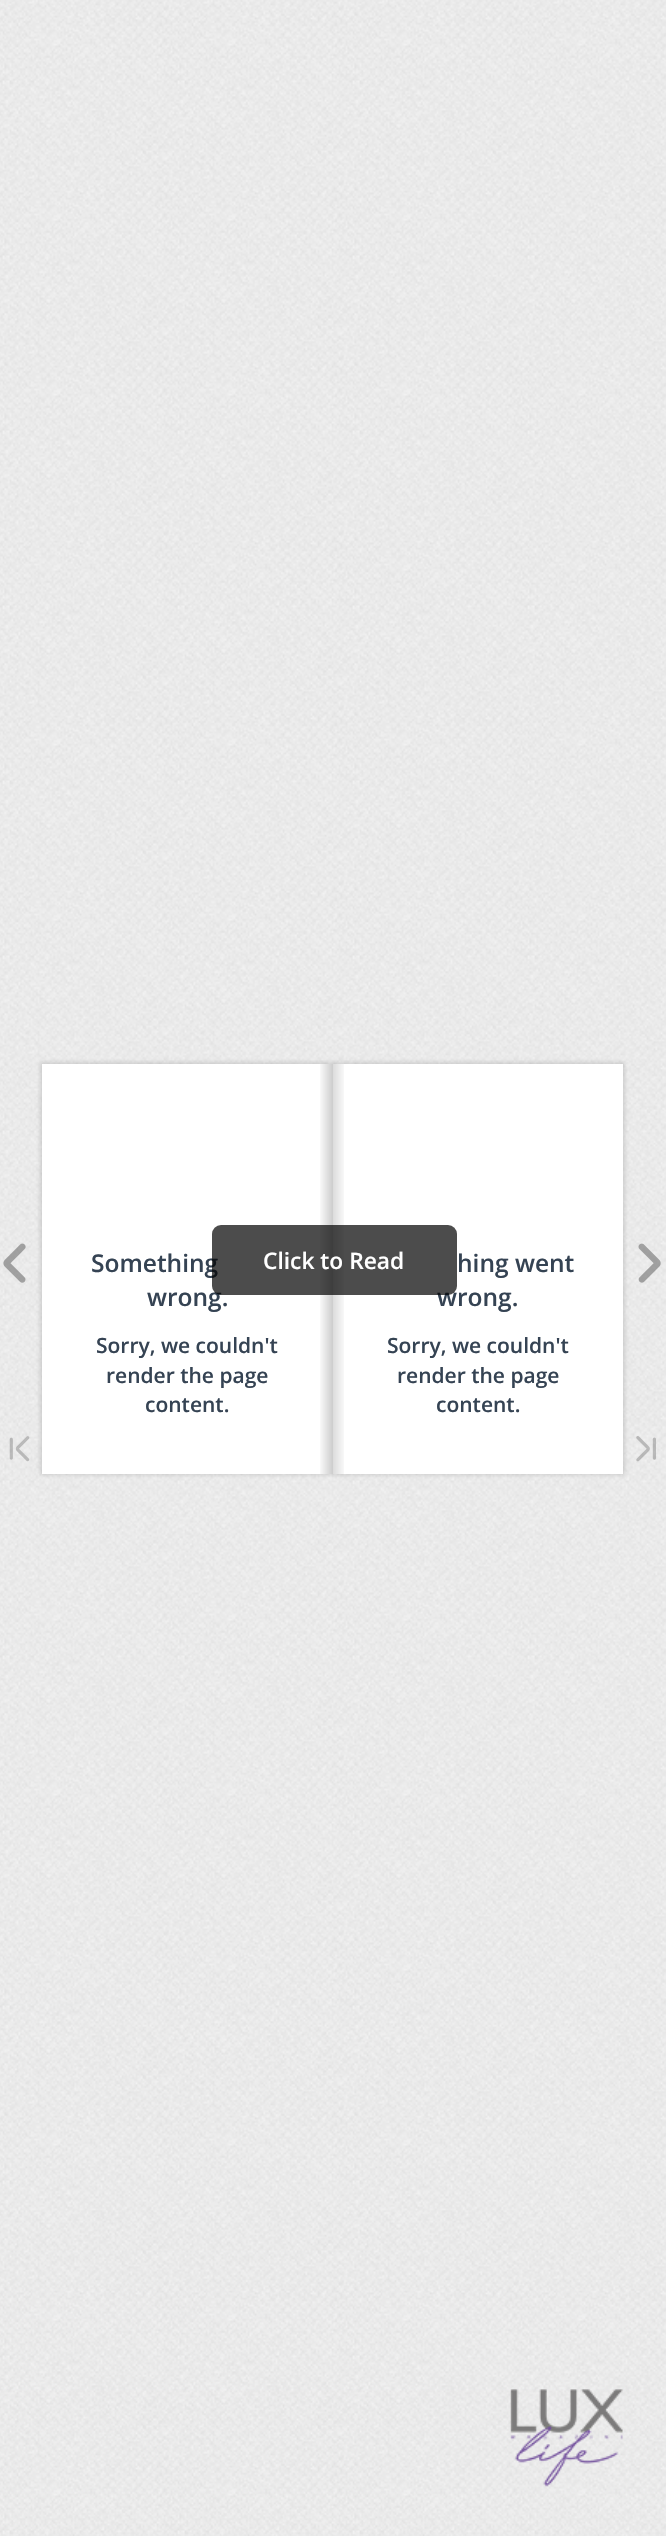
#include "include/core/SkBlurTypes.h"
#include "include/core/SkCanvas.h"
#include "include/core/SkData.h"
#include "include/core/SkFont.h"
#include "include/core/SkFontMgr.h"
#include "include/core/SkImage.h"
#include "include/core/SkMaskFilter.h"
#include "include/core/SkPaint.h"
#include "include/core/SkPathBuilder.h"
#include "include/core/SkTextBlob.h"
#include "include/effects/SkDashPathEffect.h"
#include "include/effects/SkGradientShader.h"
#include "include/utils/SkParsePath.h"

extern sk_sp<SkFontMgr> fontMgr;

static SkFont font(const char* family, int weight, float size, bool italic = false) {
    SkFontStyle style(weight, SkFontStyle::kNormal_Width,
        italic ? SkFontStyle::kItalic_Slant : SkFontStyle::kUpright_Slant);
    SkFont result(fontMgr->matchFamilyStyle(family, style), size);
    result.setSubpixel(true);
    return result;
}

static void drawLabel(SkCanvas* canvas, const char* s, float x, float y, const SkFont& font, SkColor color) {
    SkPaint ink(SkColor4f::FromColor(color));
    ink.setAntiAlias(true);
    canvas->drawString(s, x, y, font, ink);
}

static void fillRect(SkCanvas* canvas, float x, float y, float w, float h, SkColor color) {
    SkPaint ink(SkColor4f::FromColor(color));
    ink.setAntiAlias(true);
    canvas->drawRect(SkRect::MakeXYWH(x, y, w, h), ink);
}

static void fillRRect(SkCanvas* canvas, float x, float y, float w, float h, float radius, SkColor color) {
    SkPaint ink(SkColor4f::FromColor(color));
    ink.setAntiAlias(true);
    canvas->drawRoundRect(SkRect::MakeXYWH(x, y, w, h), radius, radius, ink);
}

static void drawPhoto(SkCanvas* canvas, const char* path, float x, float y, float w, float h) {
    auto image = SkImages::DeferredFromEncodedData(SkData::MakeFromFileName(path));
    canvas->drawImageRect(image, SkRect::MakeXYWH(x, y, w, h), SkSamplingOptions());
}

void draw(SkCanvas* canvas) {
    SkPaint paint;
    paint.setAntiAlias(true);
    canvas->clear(0xFFF2F2F2);
    drawPhoto(canvas, "assets/img1.png", 0, 0, 666, 2536);
    paint.setColor(0x40737373);
    paint.setMaskFilter(SkMaskFilter::MakeBlur(kNormal_SkBlurStyle, 2));
    canvas->drawRect(SkRect::MakeXYWH(40, 1062, 585, 413), paint);
    paint.setMaskFilter(nullptr);
    fillRect(canvas, 42, 1064, 581, 410, 0xFFFFFFFF);
    SkFont font1 = font("Open Sans", 600, 24.5f);
    drawLabel(canvas, "Something", 91, 1272, font1, 0xFF354353);
    drawLabel(canvas, "wrong.", 147, 1306, font1, 0xFF354353);
    {
        const SkColor colors[] = {0x00000000, 0x33000000};
        const float stops[] = {0.95f, 1};
        const SkPoint ends[] = {{42, 1269}, {333, 1269}};
        paint.setShader(SkGradientShader::MakeLinear(ends, colors, stops, 2, SkTileMode::kClamp));
        paint.setAlpha(255);
    }
    canvas->drawRect(SkRect::MakeXYWH(320, 1064, 13, 410), paint);
    {
        const SkColor colors[] = {0x00000000, 0x26000000};
        const float stops[] = {0.95f, 1};
        const SkPoint ends[] = {{623, 1269}, {332, 1269}};
        paint.setShader(SkGradientShader::MakeLinear(ends, colors, stops, 2, SkTileMode::kClamp));
        paint.setAlpha(255);
    }
    canvas->drawRect(SkRect::MakeXYWH(333, 1064, 11, 410), paint);
    drawLabel(canvas, "wrong.", 437, 1306, font1, 0xFF354353);
    fillRRect(canvas, 212, 1225, 245, 70, 9, 0xB3000000);
    SkFont font2 = font("Open Sans", 600, 22.75f);
    drawLabel(canvas, "Click to Read", 263, 1269, font2, 0xFFFFFFFF);
    drawPhoto(canvas, "assets/img2.png", 3, 1243, 23, 40);
    drawPhoto(canvas, "assets/img3.png", 9, 1436, 21, 26);
    drawPhoto(canvas, "assets/img4.png", 638, 1243, 23, 40);
    drawPhoto(canvas, "assets/img5.png", 636, 1436, 20, 26);
    SkFont font3 = font("Open Sans", 600, 21);
    drawLabel(canvas, "Sorry, we couldn't", 96, 1353, font3, 0xFF354353);
    drawLabel(canvas, "render the page", 106, 1383, font3, 0xFF354353);
    drawLabel(canvas, "content.", 145, 1412, font3, 0xFF354353);
    drawLabel(canvas, "hing went", 457, 1272, font1, 0xFF354353);
    drawLabel(canvas, "Sorry, we couldn't", 387, 1353, font3, 0xFF354353);
    drawLabel(canvas, "render the page", 397, 1383, font3, 0xFF354353);
    drawLabel(canvas, "content.", 436, 1412, font3, 0xFF354353);
    drawPhoto(canvas, "assets/img6.png", 510, 2389, 113, 98);
}
